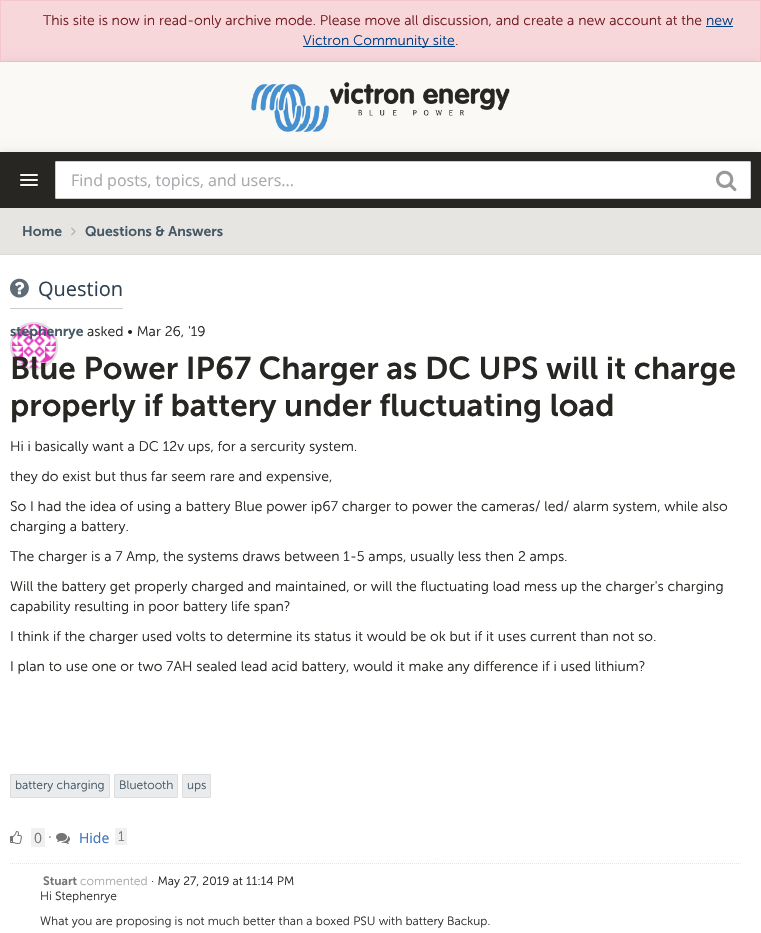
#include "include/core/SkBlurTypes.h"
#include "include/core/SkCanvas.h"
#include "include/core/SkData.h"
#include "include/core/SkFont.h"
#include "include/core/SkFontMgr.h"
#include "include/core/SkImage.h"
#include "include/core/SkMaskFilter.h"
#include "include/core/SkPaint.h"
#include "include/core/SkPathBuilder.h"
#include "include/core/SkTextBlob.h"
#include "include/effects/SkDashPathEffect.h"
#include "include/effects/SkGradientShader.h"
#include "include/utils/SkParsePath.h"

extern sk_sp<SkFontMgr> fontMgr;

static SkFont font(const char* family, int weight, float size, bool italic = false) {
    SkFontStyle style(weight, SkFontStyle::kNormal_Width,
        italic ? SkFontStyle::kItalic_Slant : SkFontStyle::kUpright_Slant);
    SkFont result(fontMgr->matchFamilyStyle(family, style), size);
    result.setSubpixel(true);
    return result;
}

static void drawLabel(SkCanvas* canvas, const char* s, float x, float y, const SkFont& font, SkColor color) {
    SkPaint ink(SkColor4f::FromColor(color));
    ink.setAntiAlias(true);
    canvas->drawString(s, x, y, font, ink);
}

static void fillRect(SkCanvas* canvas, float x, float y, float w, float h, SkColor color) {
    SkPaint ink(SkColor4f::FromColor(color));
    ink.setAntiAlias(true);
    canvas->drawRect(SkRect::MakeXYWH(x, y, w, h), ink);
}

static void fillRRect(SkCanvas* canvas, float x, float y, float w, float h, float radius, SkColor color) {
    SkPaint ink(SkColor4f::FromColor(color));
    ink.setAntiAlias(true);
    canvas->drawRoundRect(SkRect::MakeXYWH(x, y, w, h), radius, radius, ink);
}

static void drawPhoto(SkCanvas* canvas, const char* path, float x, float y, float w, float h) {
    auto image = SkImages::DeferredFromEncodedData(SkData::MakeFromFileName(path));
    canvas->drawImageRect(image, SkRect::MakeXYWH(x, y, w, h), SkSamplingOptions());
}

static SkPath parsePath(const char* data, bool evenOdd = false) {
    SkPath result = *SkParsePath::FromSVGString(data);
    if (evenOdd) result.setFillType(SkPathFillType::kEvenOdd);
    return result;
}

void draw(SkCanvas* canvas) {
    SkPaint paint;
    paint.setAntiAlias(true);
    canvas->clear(0xFFFFFFFF);
    paint.setColor(0xFFF8D7DA);
    canvas->drawRect(SkRect::MakeXYWH(0.5f, 0.5f, 760, 61), paint);
    paint.setStroke(true);
    paint.setStrokeWidth(1);
    paint.setColor(0xFFF5C6CB);
    canvas->drawRect(SkRect::MakeXYWH(0.5f, 0.5f, 760, 61), paint);
    SkFont font1 = font("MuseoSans", 400, 14);
    drawLabel(canvas, "This site is now in read-only archive mode. Please move all discussion, and create a new account at the", 43, 25, font1, 0xFF721C24);
    drawLabel(canvas, "new", 706, 25, font1, 0xFF004085);
    fillRect(canvas, 706, 26, 27, 1, 0xFF004085);
    fillRect(canvas, 303, 46, 152, 1, 0xFF004085);
    paint.setStroke(false);
    paint.setColor(0x1A000000);
    paint.setMaskFilter(SkMaskFilter::MakeBlur(kNormal_SkBlurStyle, 5));
    canvas->drawRect(SkRect::MakeXYWH(0, 63, 761, 90), paint);
    paint.setMaskFilter(nullptr);
    drawLabel(canvas, "Victron Community site", 303, 45, font1, 0xFF004085);
    drawLabel(canvas, ".", 455, 45, font1, 0xFF721C24);
    fillRect(canvas, 0, 62, 761, 90, 0xFFFAF9F5);
    drawPhoto(canvas, "assets/img1.png", 251, 82, 259, 50);
    paint.setMaskFilter(SkMaskFilter::MakeBlur(kNormal_SkBlurStyle, 5));
    canvas->drawRect(SkRect::MakeXYWH(0, 153, 761, 56), paint);
    paint.setMaskFilter(nullptr);
    fillRect(canvas, 0, 152, 761, 56, 0xFF272622);
    paint.setColor(0xFF1D1D1A);
    canvas->drawPath(parsePath("M20 175.5C19 177.5 23.5 177 23.5 177H34.5C34.5 177 39 177.5 38 175.5C37 176.5 30.5 176 29 176C27.5 176 21 176.5 20 175.5Z"), paint);
    fillRRect(canvas, 20, 174, 18, 2, 1, 0xFFF5F5F5);
    canvas->drawPath(parsePath("M20 180.5C19 182.5 23.5 182 23.5 182H34.5C34.5 182 39 182.5 38 180.5C37 181.5 30.5 181 29 181C27.5 181 21 181.5 20 180.5Z"), paint);
    fillRRect(canvas, 20, 179, 18, 2, 1, 0xFFF5F5F5);
    canvas->drawPath(parsePath("M20 185.5C19 187.5 23.5 187 23.5 187H34.5C34.5 187 39 187.5 38 185.5C37 186.5 30.5 186 29 186C27.5 186 21 186.5 20 185.5Z"), paint);
    fillRRect(canvas, 20, 184, 18, 2, 1, 0xFFF5F5F5);
    paint.setColor(0xFFFFFFFF);
    canvas->drawRoundRect(SkRect::MakeXYWH(55.5f, 161.5f, 695, 37), 0.5f, 0.5f, paint);
    paint.setStroke(true);
    paint.setColor(0xFFCCCCCC);
    canvas->drawRoundRect(SkRect::MakeXYWH(55.5f, 161.5f, 695, 37), 0.5f, 0.5f, paint);
    SkFont font2 = font("Open Sans", 400, 16);
    drawLabel(canvas, "Find posts, topics, and users...", 71, 186, font2, 0xFFA7A9AC);
    drawPhoto(canvas, "assets/img2.png", 716, 170, 21, 22);
    fillRect(canvas, 0, 208, 761, 46, 0xFFE6E5E1);
    fillRect(canvas, 0, 254, 761, 1, 0xFFDCDBD7);
    SkFont font3 = font("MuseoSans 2", 400, 14);
    drawLabel(canvas, "Home", 22, 236, font3, 0xFF435765);
    drawPhoto(canvas, "assets/img3.png", 71, 227, 5, 9);
    drawLabel(canvas, "Questions & Answers", 85, 236, font3, 0xFF435765);
    fillRect(canvas, 10, 308, 113, 1, 0xFFCCCCCC);
    drawPhoto(canvas, "assets/img4.png", 10, 278, 19, 20);
    SkFont font4 = font("Open Sans", 400, 20);
    drawLabel(canvas, "Question", 38, 296, font4, 0xFF2F4151);
    paint.setStrokeWidth(2);
    paint.setColor(0xFFDDDDDD);
    canvas->drawCircle(34, 346, 23, paint);
    drawPhoto(canvas, "assets/img5.png", 12, 324, 44, 44);
    drawLabel(canvas, "stephenrye", 10, 336, font3, 0xFF435765);
    drawLabel(canvas, "asked • Mar 26, '19", 87, 336, font1, 0xFF272622);
    SkFont font5 = font("MuseoSans 2", 400, 31.5f);
    drawLabel(canvas, "Blue Power IP67 Charger as DC UPS will it charge", 10, 379, font5, 0xFF272622);
    drawLabel(canvas, "properly if battery under fluctuating load", 10, 416, font5, 0xFF272622);
    drawLabel(canvas, "Hi i basically want a DC 12v ups, for a sercurity system.", 10, 451, font1, 0xFF272622);
    drawLabel(canvas, "they do exist but thus far seem rare and expensive,", 10, 481, font1, 0xFF272622);
    drawLabel(canvas, "So I had the idea of using a battery Blue power ip67 charger to power the cameras/ led/ alarm system, while also", 10, 511, font1, 0xFF272622);
    drawLabel(canvas, "charging a battery.", 10, 531, font1, 0xFF272622);
    drawLabel(canvas, "The charger is a 7 Amp, the systems draws between 1-5 amps, usually less then 2 amps.", 10, 561, font1, 0xFF272622);
    drawLabel(canvas, "Will the battery get properly charged and maintained, or will the fluctuating load mess up the charger's charging", 10, 591, font1, 0xFF272622);
    drawLabel(canvas, "capability resulting in poor battery life span?", 10, 611, font1, 0xFF272622);
    drawLabel(canvas, "I think if the charger used volts to determine its status it would be ok but if it uses current than not so.", 10, 641, font1, 0xFF272622);
    drawLabel(canvas, "I plan to use one or two 7AH sealed lead acid battery, would it make any difference if i used lithium?", 10, 671, font1, 0xFF272622);
    paint.setStroke(false);
    paint.setColor(0xFFEAEBED);
    canvas->drawRoundRect(SkRect::MakeXYWH(10.5f, 774.5f, 99, 23), 0.5f, 0.5f, paint);
    paint.setStroke(true);
    paint.setStrokeWidth(1);
    paint.setColor(0xFFDDDDDD);
    canvas->drawRoundRect(SkRect::MakeXYWH(10.5f, 774.5f, 99, 23), 0.5f, 0.5f, paint);
    SkFont font6 = font("MuseoSans", 400, 12);
    drawLabel(canvas, "battery charging", 15, 789, font6, 0xFF435765);
    paint.setStroke(false);
    paint.setColor(0xFFEAEBED);
    canvas->drawRoundRect(SkRect::MakeXYWH(114.5f, 774.5f, 63, 23), 0.5f, 0.5f, paint);
    paint.setStroke(true);
    paint.setColor(0xFFDDDDDD);
    canvas->drawRoundRect(SkRect::MakeXYWH(114.5f, 774.5f, 63, 23), 0.5f, 0.5f, paint);
    drawLabel(canvas, "Bluetooth", 119, 789, font6, 0xFF435765);
    paint.setStroke(false);
    paint.setColor(0xFFEAEBED);
    canvas->drawRoundRect(SkRect::MakeXYWH(182.5f, 774.5f, 28, 23), 0.5f, 0.5f, paint);
    paint.setStroke(true);
    paint.setColor(0xFFDDDDDD);
    canvas->drawRoundRect(SkRect::MakeXYWH(182.5f, 774.5f, 28, 23), 0.5f, 0.5f, paint);
    drawLabel(canvas, "ups", 187, 789, font6, 0xFF435765);
    drawPhoto(canvas, "assets/img6.png", 10, 831, 12, 13);
    fillRect(canvas, 31, 828, 14, 19, 0xFFF0F0F0);
    SkFont font7 = font("Open Sans", 400, 14);
    drawLabel(canvas, "0", 34, 843, font7, 0xFF747474);
    drawLabel(canvas, "·", 48, 841, font1, 0xFF272622);
    drawPhoto(canvas, "assets/img7.png", 56, 833, 14, 11);
    drawLabel(canvas, "Hide", 79, 843, font7, 0xFF3B73B9);
    fillRect(canvas, 115, 828, 12, 17, 0xFFF0F0F0);
    drawLabel(canvas, "1", 118, 841, font1, 0xFF747474);
    paint.setColor(0xFFE5E6E7);
    paint.setPathEffect(SkDashPathEffect::Make({{1, 1}}, 0));
    canvas->drawPath(parsePath("M10 863.5H741"), paint);
    paint.setPathEffect(nullptr);
    SkFont font8 = font("MuseoSans 2", 400, 12);
    drawLabel(canvas, "Stuart", 43, 885, font8, 0xFF747474);
    drawLabel(canvas, "commented", 80, 885, font6, 0xFFA7A9AC);
    drawLabel(canvas, "· May 27, 2019 at 11:14 PM", 151, 885, font6, 0xFF272622);
    drawLabel(canvas, "Hi Stephenrye", 40, 900, font6, 0xFF333333);
    drawLabel(canvas, "What you are proposing is not much better than a boxed PSU with battery Backup.", 40, 925, font6, 0xFF333333);
}
